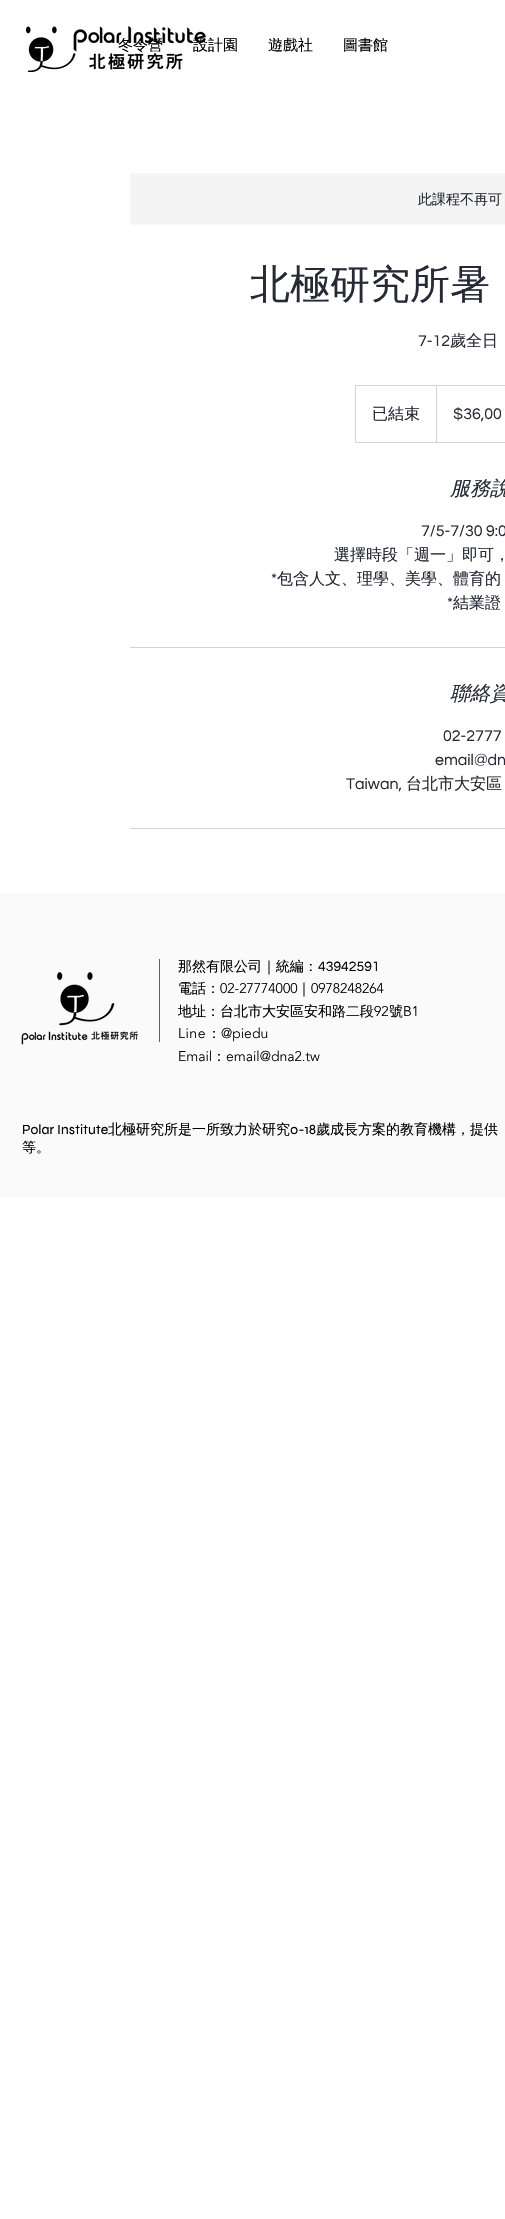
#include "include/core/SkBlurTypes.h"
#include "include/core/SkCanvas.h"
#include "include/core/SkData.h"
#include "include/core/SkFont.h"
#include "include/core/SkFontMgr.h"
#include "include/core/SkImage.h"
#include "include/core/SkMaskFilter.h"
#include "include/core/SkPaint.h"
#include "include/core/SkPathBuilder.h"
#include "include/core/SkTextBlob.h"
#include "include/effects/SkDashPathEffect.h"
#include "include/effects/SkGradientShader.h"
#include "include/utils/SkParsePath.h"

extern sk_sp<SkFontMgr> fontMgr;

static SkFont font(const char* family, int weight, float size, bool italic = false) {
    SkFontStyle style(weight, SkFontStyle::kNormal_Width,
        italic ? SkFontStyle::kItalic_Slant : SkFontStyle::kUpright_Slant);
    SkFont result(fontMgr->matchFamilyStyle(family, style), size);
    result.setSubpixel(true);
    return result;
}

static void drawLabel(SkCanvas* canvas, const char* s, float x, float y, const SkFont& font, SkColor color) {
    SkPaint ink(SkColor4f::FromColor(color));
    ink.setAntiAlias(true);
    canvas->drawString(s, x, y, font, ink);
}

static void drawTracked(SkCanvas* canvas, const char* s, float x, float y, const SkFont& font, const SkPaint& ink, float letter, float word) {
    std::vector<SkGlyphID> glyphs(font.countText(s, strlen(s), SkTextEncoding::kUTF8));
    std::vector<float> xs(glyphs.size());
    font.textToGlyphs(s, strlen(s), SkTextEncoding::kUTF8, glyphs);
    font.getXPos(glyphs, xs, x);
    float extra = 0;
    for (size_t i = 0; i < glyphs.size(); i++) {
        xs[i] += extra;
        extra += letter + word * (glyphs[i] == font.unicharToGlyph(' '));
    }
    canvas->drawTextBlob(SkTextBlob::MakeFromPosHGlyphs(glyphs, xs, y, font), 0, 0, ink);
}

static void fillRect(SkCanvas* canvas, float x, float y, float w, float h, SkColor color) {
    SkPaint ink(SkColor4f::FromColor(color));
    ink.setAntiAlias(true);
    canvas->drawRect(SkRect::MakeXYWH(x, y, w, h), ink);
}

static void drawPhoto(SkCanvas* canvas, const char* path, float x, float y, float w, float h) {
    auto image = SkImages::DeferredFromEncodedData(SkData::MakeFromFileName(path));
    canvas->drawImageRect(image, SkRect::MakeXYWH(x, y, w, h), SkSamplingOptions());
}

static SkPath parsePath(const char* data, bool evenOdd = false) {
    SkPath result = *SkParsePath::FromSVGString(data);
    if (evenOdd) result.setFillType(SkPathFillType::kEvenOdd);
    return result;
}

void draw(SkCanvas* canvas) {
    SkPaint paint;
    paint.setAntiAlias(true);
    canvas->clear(0xFFFFFFFF);
    drawPhoto(canvas, "assets/img1.png", 26, 26, 180, 46);
    SkFont font1 = font("WenQuanYi Zen Hei", 500, 15);
    drawLabel(canvas, "冬令營", 118, 50, font1, 0xFF000000);
    drawLabel(canvas, "設計園", 193, 50, font1, 0xFF000000);
    drawLabel(canvas, "遊戲社", 268, 50, font1, 0xFF000000);
    drawLabel(canvas, "圖書館", 343, 50, font1, 0xFF000000);
    paint.setColor(0xFFF4F4F5);
    canvas->drawRoundRect(SkRect::MakeXYWH(130.5f, 173.5f, 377, 51), 1.5f, 1.5f, paint);
    paint.setStroke(true);
    paint.setStrokeWidth(1);
    paint.setColor(0xFFF8F8F9);
    canvas->drawRoundRect(SkRect::MakeXYWH(130.5f, 173.5f, 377, 51), 1.5f, 1.5f, paint);
    SkFont font2 = font("WenQuanYi Zen Hei", 500, 14);
    drawLabel(canvas, "此課程不再可", 418, 204, font2, 0xFF282936);
    SkFont font3 = font("WenQuanYi Zen Hei", 500, 40);
    drawLabel(canvas, "北極研究所暑", 250, 298, font3, 0xFF282936);
    SkFont font4 = font("Questrial", 400, 16);
    drawLabel(canvas, "7-12", 418, 346, font4, 0xFF282936);
    SkFont font5 = font("WenQuanYi Zen Hei", 500, 16);
    drawLabel(canvas, "歲全日", 450, 346, font5, 0xFF282936);
    paint.setColor(0xFFD4D4D7);
    canvas->drawRect(SkRect::MakeXYWH(355.5f, 385.5f, 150, 57), paint);
    drawLabel(canvas, "已結束", 372, 419, font5, 0xFF282936);
    paint.setStroke(false);
    canvas->drawPath(parsePath("M436 442V385L437 386V442Z"), paint);
    drawLabel(canvas, "$36,00", 453, 419, font4, 0xFF282936);
    SkFont font6 = font("WenQuanYi Zen Hei", 500, 20, true);
    drawLabel(canvas, "服務說", 450, 495, font6, 0xFF282936);
    drawLabel(canvas, "7/5-7/30 9:0", 421, 536, font4, 0xFF282936);
    drawLabel(canvas, "選擇時段「週一」即可，", 334, 560, font5, 0xFF282936);
    drawLabel(canvas, "*", 271, 584, font4, 0xFF282936);
    drawLabel(canvas, "包含人文、理學、美學、體育的", 277, 584, font5, 0xFF282936);
    drawLabel(canvas, "*", 447, 608, font4, 0xFF282936);
    drawLabel(canvas, "結業證", 453, 608, font5, 0xFF282936);
    fillRect(canvas, 130, 647, 375, 1, 0xFFD4D4D7);
    drawLabel(canvas, "聯絡資", 450, 700, font6, 0xFF282936);
    drawLabel(canvas, "02-2777", 443, 741, font4, 0xFF282936);
    drawLabel(canvas, "email@dn", 435, 765, font4, 0xFF282936);
    drawLabel(canvas, "Taiwan,", 346, 789, font4, 0xFF282936);
    drawLabel(canvas, "台北市大安區", 406, 789, font5, 0xFF282936);
    fillRect(canvas, 130, 828, 375, 1, 0xFFD4D4D7);
    fillRect(canvas, 0, 893, 505, 304, 0xFFFAFAFA);
    drawPhoto(canvas, "assets/img2.png", 21, 972, 117, 73);
    fillRect(canvas, 159, 959, 1, 83, 0xFF5E5F68);
    drawLabel(canvas, "那然有限公司｜統編：", 178, 971, font2, 0xFF000000);
    SkFont font7 = font("Questrial", 400, 14);
    drawLabel(canvas, "43942591", 318, 971, font7, 0xFF000000);
    drawLabel(canvas, "電話：", 178, 993, font2, 0xFF000000);
    SkFont font8 = font("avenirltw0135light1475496", 300, 14);
    drawLabel(canvas, "02-27774000", 220, 993, font8, 0xFF000000);
    drawLabel(canvas, "｜", 297, 993, font2, 0xFF000000);
    drawLabel(canvas, "0978248264", 311, 993, font8, 0xFF000000);
    drawLabel(canvas, "地址：台北市大安區安和路二段", 178, 1016, font2, 0xFF000000);
    drawLabel(canvas, "92", 374, 1016, font8, 0xFF000000);
    drawLabel(canvas, "號", 389, 1016, font2, 0xFF000000);
    drawLabel(canvas, "B1", 403, 1016, font8, 0xFF000000);
    paint.setColor(0xFF000000);
    drawTracked(canvas, "Line", 178, 1038, font8, paint, 0.5f, 0);
    drawLabel(canvas, "：", 207, 1038, font2, 0xFF000000);
    drawLabel(canvas, "@piedu", 221, 1038, font8, 0xFF000000);
    drawLabel(canvas, "Email", 178, 1061, font8, 0xFF000000);
    drawLabel(canvas, "：", 212, 1061, font2, 0xFF000000);
    drawLabel(canvas, "email@dna2.tw", 226, 1061, font8, 0xFF000000);
    SkFont font9 = font("Syne", 400, 14);
    drawLabel(canvas, "Polar Institute", 22, 1134, font9, 0xFF000000);
    drawLabel(canvas, "北極研究所是一所致力於研究", 108, 1134, font2, 0xFF000000);
    drawLabel(canvas, "0-18", 290, 1134, font9, 0xFF000000);
    drawLabel(canvas, "歲成長方案的教育機構，提供", 316, 1134, font2, 0xFF000000);
    drawLabel(canvas, "等。", 22, 1152, font2, 0xFF000000);
}
